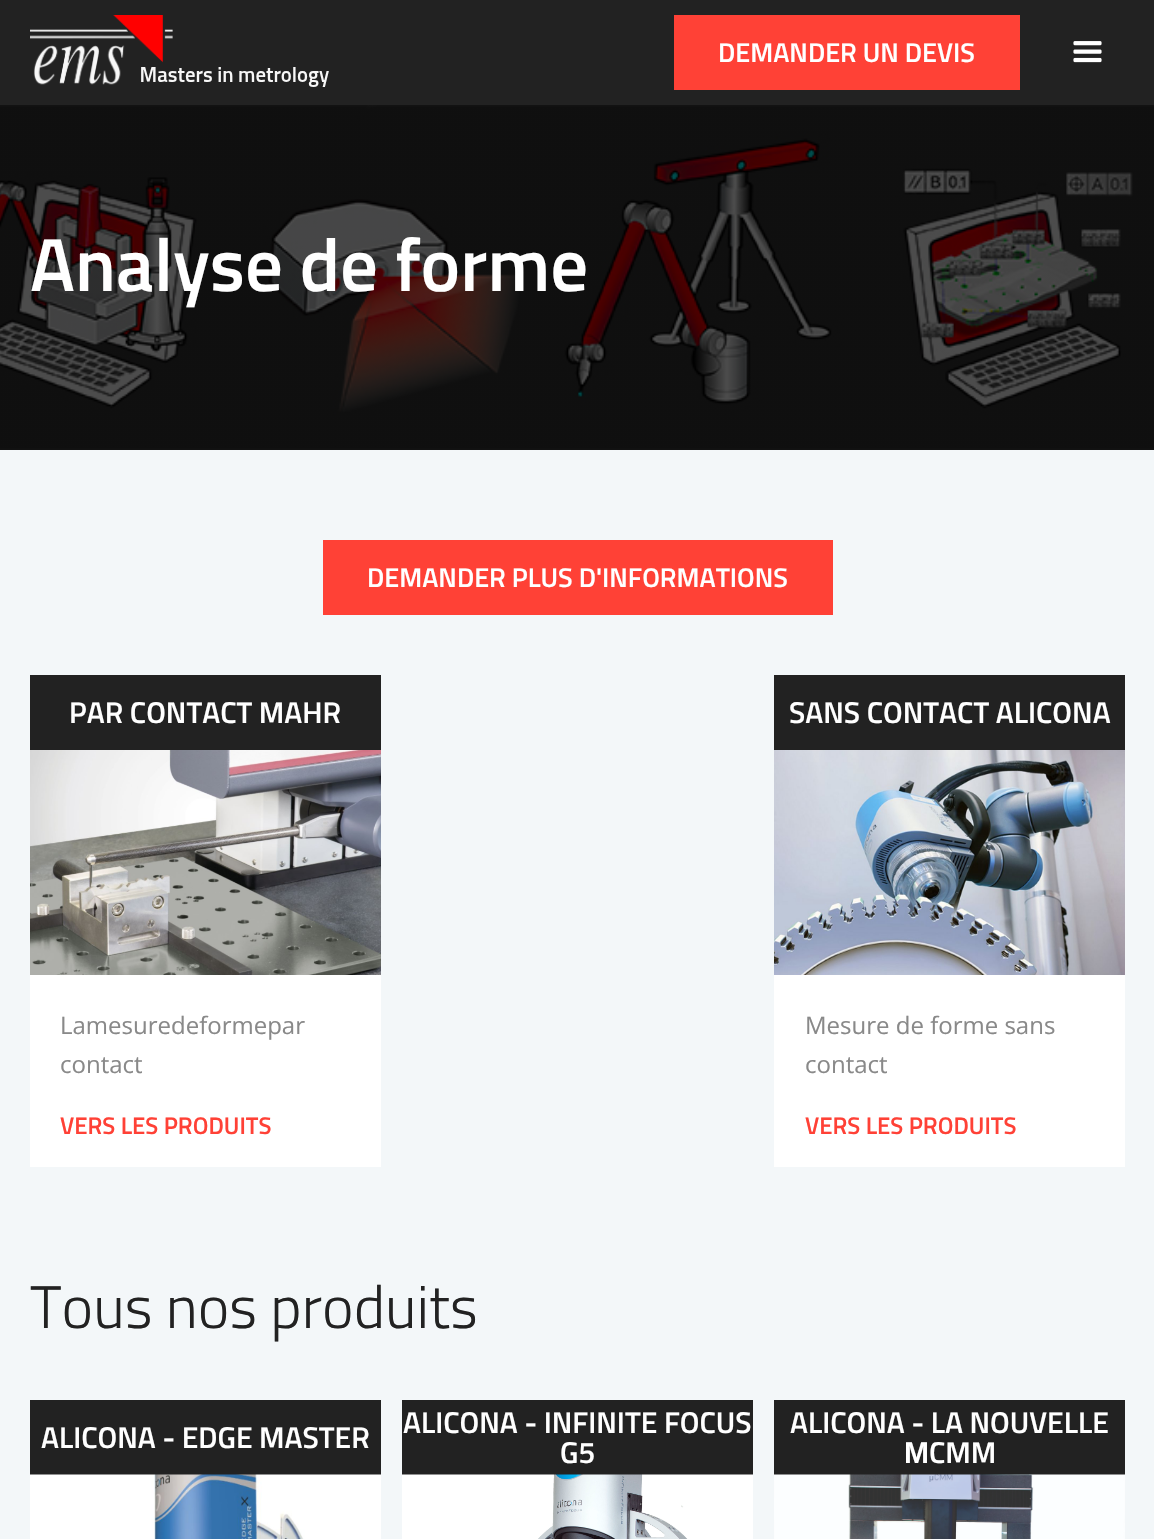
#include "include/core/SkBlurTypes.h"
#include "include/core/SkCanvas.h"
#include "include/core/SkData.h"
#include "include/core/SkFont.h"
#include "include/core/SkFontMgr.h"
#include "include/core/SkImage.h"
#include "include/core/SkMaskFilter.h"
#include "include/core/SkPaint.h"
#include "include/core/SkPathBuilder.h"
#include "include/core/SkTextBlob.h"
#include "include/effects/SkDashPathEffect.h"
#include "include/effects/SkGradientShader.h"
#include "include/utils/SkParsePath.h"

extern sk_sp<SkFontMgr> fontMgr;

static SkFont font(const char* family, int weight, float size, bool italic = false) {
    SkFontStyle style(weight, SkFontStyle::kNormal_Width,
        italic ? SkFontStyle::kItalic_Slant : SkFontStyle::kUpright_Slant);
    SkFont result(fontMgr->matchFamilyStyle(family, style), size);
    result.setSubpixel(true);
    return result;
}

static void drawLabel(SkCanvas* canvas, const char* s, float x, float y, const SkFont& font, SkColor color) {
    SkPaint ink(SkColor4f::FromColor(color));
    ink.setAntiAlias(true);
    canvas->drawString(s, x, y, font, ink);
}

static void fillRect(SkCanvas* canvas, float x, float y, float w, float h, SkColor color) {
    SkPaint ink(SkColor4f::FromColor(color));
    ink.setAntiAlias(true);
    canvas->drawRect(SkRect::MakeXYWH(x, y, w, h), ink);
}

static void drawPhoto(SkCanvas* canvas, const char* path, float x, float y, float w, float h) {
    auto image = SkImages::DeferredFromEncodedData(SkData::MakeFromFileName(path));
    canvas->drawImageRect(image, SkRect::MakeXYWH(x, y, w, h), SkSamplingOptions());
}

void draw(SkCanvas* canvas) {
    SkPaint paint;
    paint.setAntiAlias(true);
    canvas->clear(0xFF222222);
    drawPhoto(canvas, "assets/img1.png", 30, 15, 299, 72);
    fillRect(canvas, 674, 15, 346, 75, 0xFFFF4136);
    SkFont font1 = font("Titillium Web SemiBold", 600, 27);
    drawLabel(canvas, "DEMANDER UN DEVIS", 718, 62, font1, 0xFFFFFFFF);
    drawPhoto(canvas, "assets/img2.png", 1073, 41, 29, 22);
    drawPhoto(canvas, "assets/img3.png", 0, 105, 1154, 345);
    SkFont font2 = font("Titillium Web SemiBold", 600, 75);
    drawLabel(canvas, "Analyse de forme", 30, 291, font2, 0xFFFFFFFF);
    fillRect(canvas, 0, 450, 1154, 1089, 0xFFF3F7F9);
    fillRect(canvas, 323, 540, 510, 75, 0xFFFF4136);
    drawLabel(canvas, "DEMANDER PLUS D'INFORMATIONS", 367, 587, font1, 0xFFFFFFFF);
    fillRect(canvas, 30, 675, 351, 75, 0xFF222222);
    SkFont font3 = font("Titillium Web SemiBold", 600, 30);
    drawLabel(canvas, "PAR CONTACT MAHR", 69, 723, font3, 0xFFFFFFFF);
    drawPhoto(canvas, "assets/img4.png", 30, 750, 351, 225);
    fillRect(canvas, 30, 975, 351, 192, 0xFFFFFFFF);
    SkFont font4 = font("Open Sans", 400, 24);
    drawLabel(canvas, "La mesure de forme par", 60, 1034, font4, 0xFF898989);
    drawLabel(canvas, "contact", 60, 1073, font4, 0xFF898989);
    SkFont font5 = font("Titillium Web SemiBold", 600, 24);
    drawLabel(canvas, "VERS LES PRODUITS", 60, 1134, font5, 0xFFFF4136);
    fillRect(canvas, 774, 675, 351, 75, 0xFF222222);
    drawLabel(canvas, "SANS CONTACT ALICONA", 789, 723, font3, 0xFFFFFFFF);
    drawPhoto(canvas, "assets/img5.png", 774, 750, 351, 225);
    fillRect(canvas, 774, 975, 351, 192, 0xFFFFFFFF);
    drawLabel(canvas, "Mesure de forme sans", 805, 1034, font4, 0xFF898989);
    drawLabel(canvas, "contact", 805, 1073, font4, 0xFF898989);
    drawLabel(canvas, "VERS LES PRODUITS", 805, 1134, font5, 0xFFFF4136);
    SkFont font6 = font("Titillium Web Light", 300, 60);
    drawLabel(canvas, "Tous nos produits", 30, 1328, font6, 0xFF222222);
    fillRect(canvas, 30, 1400, 351, 75, 0xFF222222);
    drawLabel(canvas, "ALICONA - EDGE MASTER", 41, 1448, font3, 0xFFFFFFFF);
    drawPhoto(canvas, "assets/img6.png", 30, 1474, 351, 65);
    fillRect(canvas, 402, 1400, 351, 75, 0xFF222222);
    drawLabel(canvas, "ALICONA - INFINITE FOCUS", 403, 1433, font3, 0xFFFFFFFF);
    drawLabel(canvas, "G5", 560, 1463, font3, 0xFFFFFFFF);
    drawPhoto(canvas, "assets/img7.png", 402, 1474, 351, 65);
    fillRect(canvas, 774, 1400, 351, 75, 0xFF222222);
    drawLabel(canvas, "ALICONA - LA NOUVELLE", 790, 1433, font3, 0xFFFFFFFF);
    SkFont font7 = font("Liberation Sans", 700, 30);
    drawLabel(canvas, "Μ", 904, 1463, font7, 0xFFFFFFFF);
    drawLabel(canvas, "CMM", 929, 1463, font3, 0xFFFFFFFF);
    drawPhoto(canvas, "assets/img8.png", 774, 1474, 351, 65);
}
